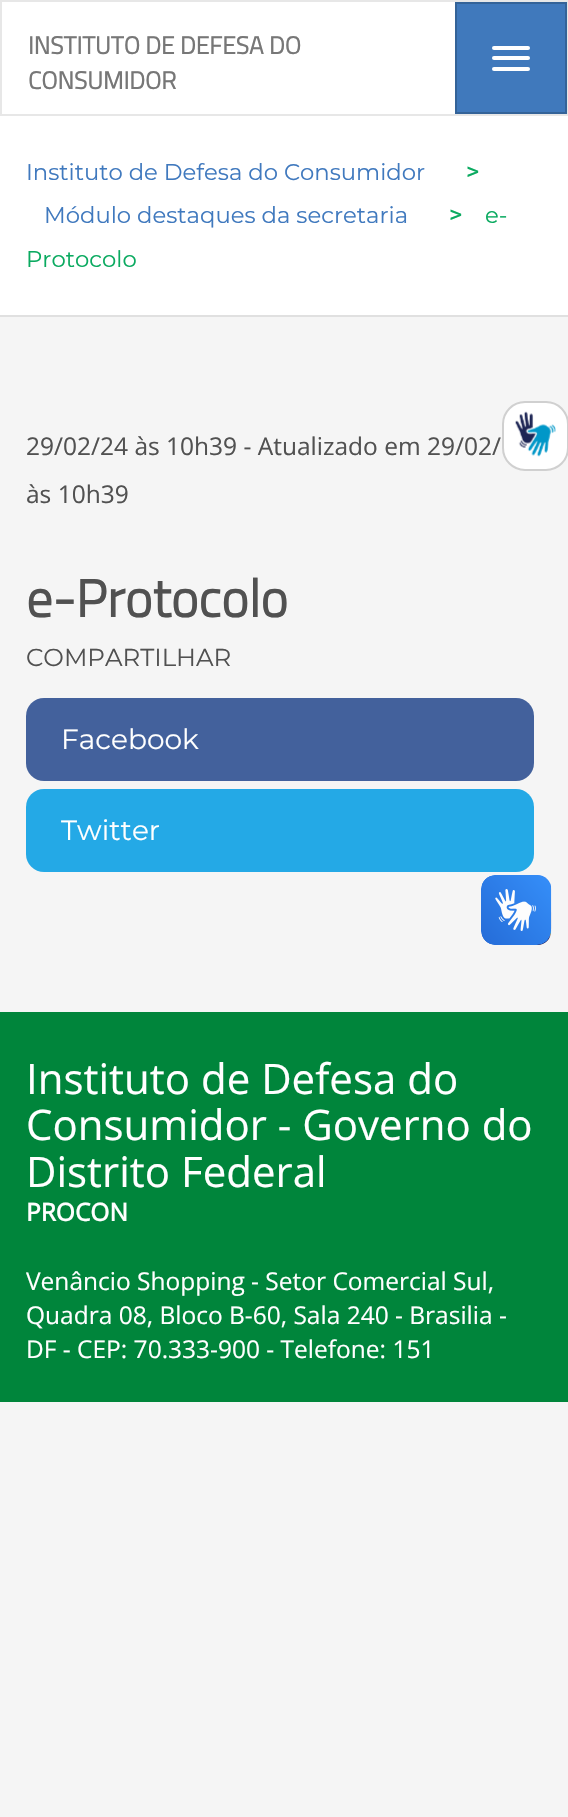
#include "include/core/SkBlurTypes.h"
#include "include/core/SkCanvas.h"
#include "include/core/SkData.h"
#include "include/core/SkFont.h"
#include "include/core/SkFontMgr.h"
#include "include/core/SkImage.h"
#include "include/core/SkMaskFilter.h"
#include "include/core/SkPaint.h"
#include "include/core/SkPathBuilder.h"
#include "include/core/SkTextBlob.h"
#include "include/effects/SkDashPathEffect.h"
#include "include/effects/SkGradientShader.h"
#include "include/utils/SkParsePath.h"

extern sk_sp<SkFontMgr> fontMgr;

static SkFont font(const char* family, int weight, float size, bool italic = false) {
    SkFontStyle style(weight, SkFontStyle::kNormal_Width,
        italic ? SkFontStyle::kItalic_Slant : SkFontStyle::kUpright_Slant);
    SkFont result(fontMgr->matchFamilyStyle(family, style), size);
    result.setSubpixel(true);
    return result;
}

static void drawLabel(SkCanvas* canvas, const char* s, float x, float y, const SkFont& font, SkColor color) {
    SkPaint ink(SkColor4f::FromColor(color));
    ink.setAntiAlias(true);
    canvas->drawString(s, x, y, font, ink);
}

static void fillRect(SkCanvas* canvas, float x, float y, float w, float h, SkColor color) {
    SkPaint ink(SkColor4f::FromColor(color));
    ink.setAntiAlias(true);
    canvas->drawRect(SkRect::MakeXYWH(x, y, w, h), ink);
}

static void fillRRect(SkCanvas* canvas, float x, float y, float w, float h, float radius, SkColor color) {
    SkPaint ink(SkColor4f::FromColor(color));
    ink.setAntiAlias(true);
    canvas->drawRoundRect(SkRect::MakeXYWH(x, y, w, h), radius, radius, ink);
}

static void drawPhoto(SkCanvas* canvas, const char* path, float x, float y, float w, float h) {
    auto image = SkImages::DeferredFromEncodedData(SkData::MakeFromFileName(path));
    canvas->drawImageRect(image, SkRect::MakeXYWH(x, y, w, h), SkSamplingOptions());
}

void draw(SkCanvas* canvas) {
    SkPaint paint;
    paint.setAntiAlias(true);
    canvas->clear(0xFFF5F5F5);
    paint.setStroke(true);
    paint.setStrokeWidth(2);
    paint.setColor(0xFFE7E7E7);
    canvas->drawRect(SkRect::MakeXYWH(1, 1, 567, 114), paint);
    fillRect(canvas, 2, 2, 453, 112, 0xFFFFFFFF);
    SkFont font1 = font("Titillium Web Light", 700, 24.5f);
    drawLabel(canvas, "INSTITUTO DE DEFESA DO", 28, 54, font1, 0xFF777777);
    drawLabel(canvas, "CONSUMIDOR", 28, 89, font1, 0xFF777777);
    paint.setStroke(false);
    paint.setColor(0xFF4079BC);
    canvas->drawRect(SkRect::MakeXYWH(456, 3, 110, 110), paint);
    paint.setStroke(true);
    paint.setColor(0xFF346398);
    canvas->drawRect(SkRect::MakeXYWH(456, 3, 110, 110), paint);
    fillRRect(canvas, 492, 46, 38, 4, 2, 0xFFFFFFFF);
    fillRRect(canvas, 492, 56, 38, 4, 2, 0xFFFFFFFF);
    fillRRect(canvas, 492, 67, 38, 4, 2, 0xFFFFFFFF);
    fillRect(canvas, 0, 116, 568, 199, 0xFFFFFFFF);
    fillRect(canvas, 0, 315, 568, 2, 0xFFE0E0E0);
    SkFont font2 = font("Montserrat", 100, 22.75f);
    drawLabel(canvas, "Instituto de Defesa do Consumidor", 26, 180, font2, 0xFF4079BE);
    SkFont font3 = font("Montserrat", 700, 22.75f);
    drawLabel(canvas, ">", 466, 180, font3, 0xFF0AAA60);
    drawLabel(canvas, "Módulo destaques da secretaria", 44, 223, font2, 0xFF4079BE);
    drawLabel(canvas, ">", 449, 223, font3, 0xFF0AAA60);
    drawLabel(canvas, "e-", 485, 223, font2, 0xFF0AAA60);
    drawLabel(canvas, "Protocolo", 26, 267, font2, 0xFF0AAA60);
    SkFont font4 = font("Open Sans", 400, 24.5f);
    drawLabel(canvas, "29/02/24 às 10h39 - Atualizado em 29/02/", 26, 455, font4, 0xFF515151);
    drawLabel(canvas, "às 10h39", 26, 503, font4, 0xFF515151);
    SkFont font5 = font("Titillium Web Light", 700, 52.5f);
    drawLabel(canvas, "e-Protocolo", 26, 617, font5, 0xFF515151);
    SkFont font6 = font("Montserrat", 100, 24.5f);
    drawLabel(canvas, "COMPARTILHAR", 26, 666, font6, 0xFF515151);
    fillRRect(canvas, 26, 698, 508, 83, 18, 0xFF43619C);
    SkFont font7 = font("Montserrat", 100, 28);
    drawLabel(canvas, "Facebook", 61, 749, font7, 0xFFFFFFFF);
    fillRRect(canvas, 26, 789, 508, 83, 18, 0xFF24A9E6);
    drawLabel(canvas, "Twitter", 61, 840, font7, 0xFFFFFFFF);
    paint.setStroke(false);
    paint.setColor(0xFFFFFFFF);
    canvas->drawRoundRect(SkRect::MakeXYWH(503, 402, 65, 68), 22, 22, paint);
    paint.setStroke(true);
    paint.setColor(0xFFD0D0D0);
    canvas->drawRoundRect(SkRect::MakeXYWH(503, 402, 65, 68), 22, 22, paint);
    drawPhoto(canvas, "assets/img1.png", 515, 411, 41, 46);
    drawPhoto(canvas, "assets/img2.png", 481, 875, 71, 70);
    drawPhoto(canvas, "assets/img3.png", 481, 875, 70, 70);
    fillRect(canvas, 0, 1012, 568, 390, 0xFF00853B);
    SkFont font8 = font("Open Sans", 400, 42);
    drawLabel(canvas, "Instituto de Defesa do", 26, 1094, font8, 0xFFFFFFFF);
    drawLabel(canvas, "Consumidor - Governo do", 26, 1140, font8, 0xFFFFFFFF);
    drawLabel(canvas, "Distrito Federal", 26, 1187, font8, 0xFFFFFFFF);
    SkFont font9 = font("Open Sans", 700, 24.5f);
    drawLabel(canvas, "PROCON", 26, 1221, font9, 0xFFFFFFFF);
    drawLabel(canvas, "Venâncio Shopping - Setor Comercial Sul,", 26, 1290, font4, 0xFFFFFFFF);
    drawLabel(canvas, "Quadra 08, Bloco B-60, Sala 240 - Brasilia -", 26, 1324, font4, 0xFFFFFFFF);
    drawLabel(canvas, "DF - CEP: 70.333-900 - Telefone: 151", 26, 1358, font4, 0xFFFFFFFF);
}
